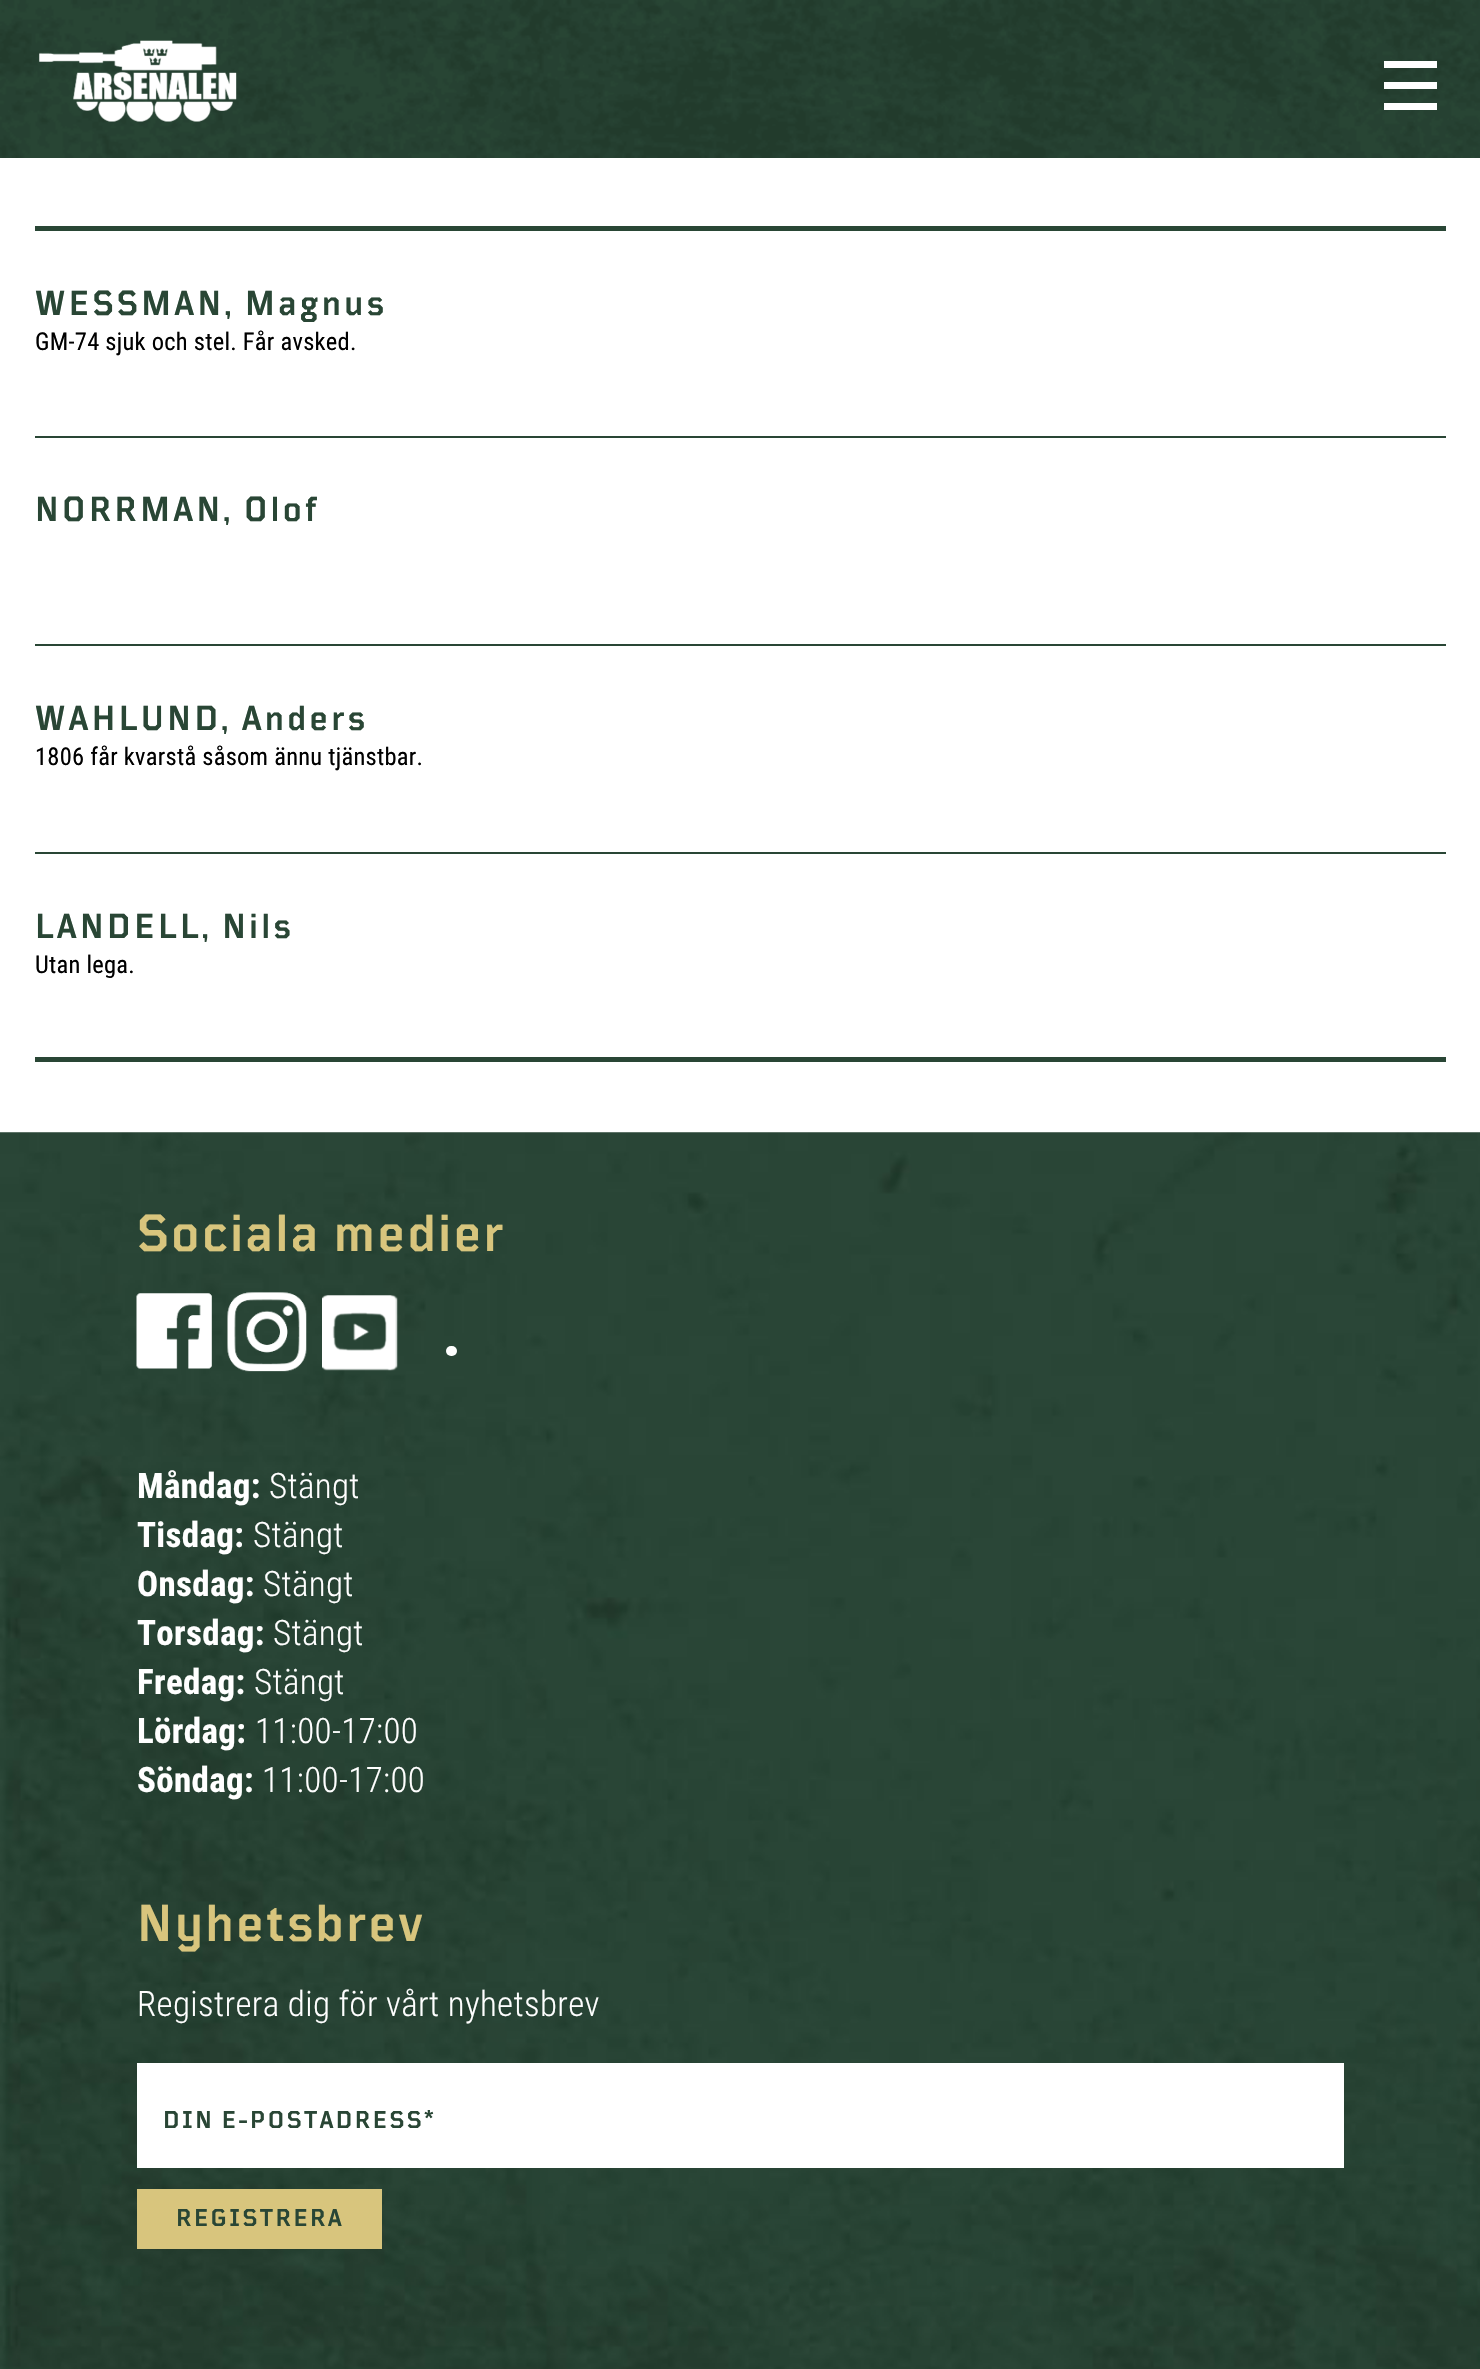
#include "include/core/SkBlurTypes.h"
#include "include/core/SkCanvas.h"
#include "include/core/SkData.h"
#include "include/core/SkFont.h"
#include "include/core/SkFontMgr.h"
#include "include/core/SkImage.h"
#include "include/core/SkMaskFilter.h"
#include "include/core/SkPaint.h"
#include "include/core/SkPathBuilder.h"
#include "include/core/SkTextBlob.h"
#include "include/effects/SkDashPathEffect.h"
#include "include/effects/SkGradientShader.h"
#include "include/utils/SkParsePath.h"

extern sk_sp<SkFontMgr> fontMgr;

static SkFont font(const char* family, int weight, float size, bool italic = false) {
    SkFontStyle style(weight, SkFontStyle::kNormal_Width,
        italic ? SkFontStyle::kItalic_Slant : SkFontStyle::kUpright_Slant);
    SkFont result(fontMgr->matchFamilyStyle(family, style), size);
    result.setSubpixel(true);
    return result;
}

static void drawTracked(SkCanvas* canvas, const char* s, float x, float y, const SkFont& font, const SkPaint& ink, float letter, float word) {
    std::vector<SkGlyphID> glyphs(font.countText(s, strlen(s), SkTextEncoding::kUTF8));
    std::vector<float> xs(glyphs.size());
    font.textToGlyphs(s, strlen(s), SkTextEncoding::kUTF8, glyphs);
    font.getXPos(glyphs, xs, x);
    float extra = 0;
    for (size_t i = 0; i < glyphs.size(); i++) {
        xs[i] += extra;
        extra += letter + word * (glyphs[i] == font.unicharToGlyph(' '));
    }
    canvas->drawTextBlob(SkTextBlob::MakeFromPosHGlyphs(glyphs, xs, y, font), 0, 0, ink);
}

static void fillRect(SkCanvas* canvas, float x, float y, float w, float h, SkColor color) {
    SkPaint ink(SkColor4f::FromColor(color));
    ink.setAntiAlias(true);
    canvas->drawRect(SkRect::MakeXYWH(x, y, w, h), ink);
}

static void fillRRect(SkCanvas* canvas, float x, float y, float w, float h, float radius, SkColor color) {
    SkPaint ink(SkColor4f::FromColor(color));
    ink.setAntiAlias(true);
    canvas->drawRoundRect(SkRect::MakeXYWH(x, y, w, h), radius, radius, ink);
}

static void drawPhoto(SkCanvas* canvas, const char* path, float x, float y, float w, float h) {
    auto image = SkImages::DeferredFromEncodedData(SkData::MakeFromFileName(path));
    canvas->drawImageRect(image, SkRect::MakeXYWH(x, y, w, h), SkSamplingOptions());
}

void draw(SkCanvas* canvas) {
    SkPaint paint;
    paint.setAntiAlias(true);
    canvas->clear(0xFFFFFFFF);
    drawPhoto(canvas, "assets/img1.png", 0, 0, 1480, 158);
    drawPhoto(canvas, "assets/img2.png", 39, 40, 198, 82);
    fillRect(canvas, 1384, 61, 53, 7, 0xFFFFFFFF);
    fillRect(canvas, 1384, 82, 53, 7, 0xFFFFFFFF);
    fillRect(canvas, 1384, 103, 53, 7, 0xFFFFFFFF);
    fillRect(canvas, 35, 226, 1411, 5, 0xFF294635);
    SkFont font1 = font("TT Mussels", 600, 35);
    paint.setColor(0xFF294635);
    drawTracked(canvas, "WESSMAN, Magnus", 35, 315, font1, paint, 3.5f, 0);
    SkFont font2 = font("Roboto Condensed", 400, 24.5f);
    paint.setColor(0xFF000000);
    drawTracked(canvas, "GM-74 sjuk och stel. Får avsked.", 35, 350, font2, paint, 0.25f, 0);
    fillRect(canvas, 35, 436, 1411, 2, 0xFF294635);
    paint.setColor(0xFF294635);
    drawTracked(canvas, "NORRMAN, Olof", 35, 521, font1, paint, 3.5f, 0);
    fillRect(canvas, 35, 644, 1411, 2, 0xFF294635);
    drawTracked(canvas, "WAHLUND, Anders", 35, 730, font1, paint, 3.5f, 0);
    paint.setColor(0xFF000000);
    drawTracked(canvas, "1806 får kvarstå såsom ännu tjänstbar.", 35, 765, font2, paint, 0.25f, 0);
    fillRect(canvas, 35, 852, 1411, 2, 0xFF294635);
    fillRect(canvas, 35, 1057, 1411, 5, 0xFF294635);
    paint.setColor(0xFF294635);
    drawTracked(canvas, "LANDELL, Nils", 35, 938, font1, paint, 3.5f, 0);
    paint.setColor(0xFF000000);
    drawTracked(canvas, "Utan lega.", 35, 973, font2, paint, 0.25f, 0);
    drawPhoto(canvas, "assets/img3.png", 0, 1132, 1480, 1237);
    SkFont font3 = font("TT Mussels", 600, 52.5f);
    paint.setColor(0xFFD8C57D);
    drawTracked(canvas, "Sociala medier", 137, 1251, font3, paint, 2.6f, 0);
    drawPhoto(canvas, "assets/img4.png", 136, 1293, 76, 76);
    drawPhoto(canvas, "assets/img5.png", 227, 1292, 80, 80);
    drawPhoto(canvas, "assets/img6.png", 322, 1295, 76, 76);
    fillRRect(canvas, 446, 1346, 11, 10, 5, 0xFFFFFFFF);
    SkFont font4 = font("Roboto Condensed", 700, 35);
    paint.setColor(0xFFFFFFFF);
    drawTracked(canvas, "Måndag:", 137, 1498, font4, paint, 0.35f, 0);
    SkFont font5 = font("Roboto Condensed", 300, 35);
    drawTracked(canvas, "Stängt", 269, 1498, font5, paint, 0.35f, 0);
    drawTracked(canvas, "Tisdag:", 137, 1547, font4, paint, 0.35f, 0);
    drawTracked(canvas, "Stängt", 253, 1547, font5, paint, 0.35f, 0);
    drawTracked(canvas, "Onsdag:", 137, 1596, font4, paint, 0.35f, 0);
    drawTracked(canvas, "Stängt", 263, 1596, font5, paint, 0.35f, 0);
    drawTracked(canvas, "Torsdag:", 137, 1645, font4, paint, 0.35f, 0);
    drawTracked(canvas, "Stängt", 273, 1645, font5, paint, 0.35f, 0);
    drawTracked(canvas, "Fredag:", 137, 1694, font4, paint, 0.35f, 0);
    drawTracked(canvas, "Stängt", 254, 1694, font5, paint, 0.35f, 0);
    drawTracked(canvas, "Lördag:", 137, 1743, font4, paint, 0.35f, 0);
    drawTracked(canvas, "11:00-17:00", 255, 1743, font5, paint, 0.35f, 0);
    drawTracked(canvas, "Söndag:", 137, 1792, font4, paint, 0.35f, 0);
    drawTracked(canvas, "11:00-17:00", 262, 1792, font5, paint, 0.35f, 0);
    paint.setColor(0xFFD8C57D);
    drawTracked(canvas, "Nyhetsbrev", 137, 1941, font3, paint, 2.6f, 0);
    paint.setColor(0xFFFFFFFF);
    drawTracked(canvas, "Registrera dig för vårt nyhetsbrev", 137, 2016, font5, paint, 0.35f, 0);
    fillRect(canvas, 137, 2063, 1207, 105, 0xFFFFFFFF);
    SkFont font6 = font("TT Mussels", 600, 24.5f);
    paint.setColor(0xFF294635);
    drawTracked(canvas, "DIN E-POSTADRESS*", 163, 2128, font6, paint, 2.5f, 0);
    fillRect(canvas, 137, 2189, 245, 60, 0xFFD8C57D);
    drawTracked(canvas, "REGISTRERA", 176, 2226, font6, paint, 2.5f, 0);
}
